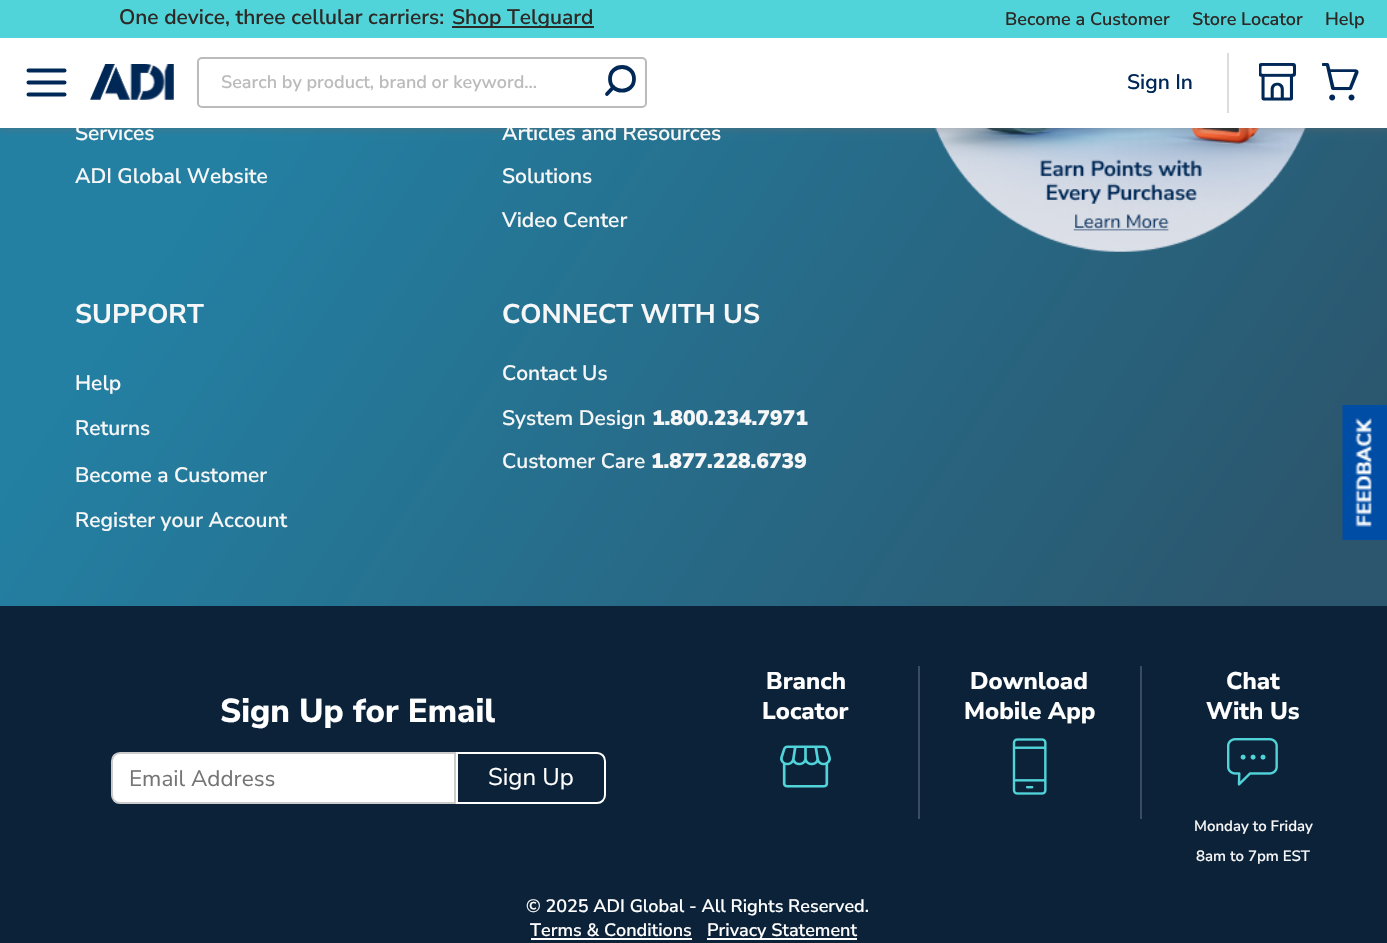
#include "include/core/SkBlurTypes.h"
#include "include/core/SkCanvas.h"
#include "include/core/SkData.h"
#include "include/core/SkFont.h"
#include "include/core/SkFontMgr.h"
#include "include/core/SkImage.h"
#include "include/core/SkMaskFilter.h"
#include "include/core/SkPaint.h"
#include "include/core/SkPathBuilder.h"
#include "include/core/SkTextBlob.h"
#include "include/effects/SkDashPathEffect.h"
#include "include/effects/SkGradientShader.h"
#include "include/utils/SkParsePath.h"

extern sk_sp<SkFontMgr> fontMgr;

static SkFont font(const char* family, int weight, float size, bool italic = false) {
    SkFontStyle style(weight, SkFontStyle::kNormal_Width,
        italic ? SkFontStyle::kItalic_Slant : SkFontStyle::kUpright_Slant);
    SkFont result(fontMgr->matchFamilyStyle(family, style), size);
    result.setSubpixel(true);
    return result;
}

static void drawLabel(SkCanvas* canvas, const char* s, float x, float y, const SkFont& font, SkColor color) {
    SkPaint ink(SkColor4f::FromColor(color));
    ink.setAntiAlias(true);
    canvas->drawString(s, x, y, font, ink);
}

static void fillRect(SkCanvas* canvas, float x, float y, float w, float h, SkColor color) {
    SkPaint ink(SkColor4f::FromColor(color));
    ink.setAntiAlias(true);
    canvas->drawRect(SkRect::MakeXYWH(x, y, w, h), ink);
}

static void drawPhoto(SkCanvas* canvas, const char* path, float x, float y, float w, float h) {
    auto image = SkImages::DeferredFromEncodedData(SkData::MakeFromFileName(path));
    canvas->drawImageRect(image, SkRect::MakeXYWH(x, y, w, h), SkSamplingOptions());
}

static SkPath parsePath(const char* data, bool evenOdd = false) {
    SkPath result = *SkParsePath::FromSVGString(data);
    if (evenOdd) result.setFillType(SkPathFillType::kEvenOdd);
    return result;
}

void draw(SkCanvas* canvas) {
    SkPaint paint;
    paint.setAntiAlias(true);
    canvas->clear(0xFFFFFFFF);
    {
        const SkColor colors[] = {0xFF2380A3, 0xFF2B566D};
        const float stops[] = {0.19f, 0.81f};
        const SkPoint ends[] = {{-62, -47}, {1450, 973}};
        paint.setShader(SkGradientShader::MakeLinear(ends, colors, stops, 2, SkTileMode::kClamp));
        paint.setAlpha(255);
    }
    canvas->drawRect(SkRect::MakeXYWH(0, 128, 1387, 478), paint);
    drawPhoto(canvas, "assets/img4.png", 935, 128, 371, 124);
    paint.setShader(nullptr);
    paint.setColor(0x52696969);
    paint.setMaskFilter(SkMaskFilter::MakeBlur(kNormal_SkBlurStyle, 3));
    canvas->drawRect(SkRect::MakeXYWH(0, 3, 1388, 128), paint);
    paint.setMaskFilter(nullptr);
    SkFont font1 = font("Nunito Sans", 600, 21);
    drawLabel(canvas, "Services", 75, 140, font1, 0xFFF7F7F7);
    drawLabel(canvas, "Articles and Resources", 502, 140, font1, 0xFFF7F7F7);
    fillRect(canvas, 0, 38, 1387, 90, 0xFFFFFFFF);
    fillRect(canvas, 0, 0, 1387, 38, 0xFF51D4D9);
    drawLabel(canvas, "One device, three cellular carriers:", 119, 24, font1, 0xFF2D2926);
    fillRect(canvas, 452, 26, 142, 2, 0xFF2D2926);
    drawLabel(canvas, "Shop Telguard", 452, 24, font1, 0xFF2D2926);
    SkFont font2 = font("Nunito Sans", 600, 18);
    drawLabel(canvas, "Become a Customer", 1005, 25, font2, 0xFF2D2926);
    drawLabel(canvas, "Store Locator", 1192, 25, font2, 0xFF2D2926);
    drawLabel(canvas, "Help", 1325, 25, font2, 0xFF2D2926);
    paint.setStroke(true);
    paint.setStrokeWidth(4);
    paint.setStrokeCap(SkPaint::kRound_Cap);
    paint.setStrokeJoin(SkPaint::kRound_Join);
    paint.setColor(0xFF002856);
    canvas->drawPath(parsePath("M28.5 82.5H64.5M28.5 70.5H64.5M28.5 94.5H64.5"), paint);
    drawPhoto(canvas, "assets/img1.png", 90, 64, 84, 36);
    paint.setStrokeWidth(2);
    paint.setStrokeCap(SkPaint::kButt_Cap);
    paint.setStrokeJoin(SkPaint::kMiter_Join);
    paint.setColor(0xFFBBBBBB);
    canvas->drawRoundRect(SkRect::MakeXYWH(198, 58, 448, 49), 4, 4, paint);
    drawLabel(canvas, "Search by product, brand or keyword...", 221, 88, font2, 0xFFBBBBBB);
    paint.setStrokeWidth(3.8f);
    paint.setStrokeCap(SkPaint::kRound_Cap);
    paint.setStrokeJoin(SkPaint::kRound_Join);
    paint.setColor(0xFF002856);
    canvas->drawPath(parsePath("M634 79C634 94.5 610 94.5 610 79C610 63 634 63 634 79ZM607 94L613.5 87"), paint);
    fillRect(canvas, 1227, 53, 2, 60, 0xFFDDDDDD);
    drawLabel(canvas, "Sign In", 1127, 89, font1, 0xFF002856);
    drawPhoto(canvas, "assets/img2.png", 1259, 63, 37, 38);
    drawPhoto(canvas, "assets/img3.png", 1322, 63, 37, 38);
    drawLabel(canvas, "ADI Global Website", 75, 183, font1, 0xFFF7F7F7);
    drawLabel(canvas, "Solutions", 502, 183, font1, 0xFFF7F7F7);
    drawLabel(canvas, "Video Center", 502, 227, font1, 0xFFF7F7F7);
    SkFont font3 = font("Nunito Sans", 700, 27);
    drawLabel(canvas, "SUPPORT", 75, 323, font3, 0xFFF7F7F7);
    drawLabel(canvas, "Help", 75, 390, font1, 0xFFF7F7F7);
    drawLabel(canvas, "Returns", 75, 435, font1, 0xFFF7F7F7);
    drawLabel(canvas, "Become a Customer", 75, 482, font1, 0xFFF7F7F7);
    drawLabel(canvas, "Register your Account", 75, 527, font1, 0xFFF7F7F7);
    drawLabel(canvas, "CONNECT WITH US", 502, 323, font3, 0xFFF7F7F7);
    drawLabel(canvas, "Contact Us", 502, 380, font1, 0xFFF7F7F7);
    drawLabel(canvas, "System Design", 502, 425, font1, 0xFFF7F7F7);
    SkFont font4 = font("Nunito Sans", 900, 21);
    drawLabel(canvas, "1.800.234.7971", 652, 425, font4, 0xFFF7F7F7);
    drawLabel(canvas, "Customer Care", 502, 468, font1, 0xFFF7F7F7);
    drawLabel(canvas, "1.877.228.6739", 651, 468, font4, 0xFFF7F7F7);
    fillRect(canvas, 0, 606, 1387, 337, 0xFF0C2239);
    SkFont font5 = font("Nunito Sans", 800, 33);
    drawLabel(canvas, "Sign Up for Email", 220, 722, font5, 0xFFFFFFFF);
    paint.setStroke(false);
    paint.setColor(0xFFFFFFFF);
    canvas->drawPath(parsePath("M120 753H455V803H120C115.5 803 112 799.5 112 795V761C112 756.5 115.5 753 120 753Z"), paint);
    paint.setStroke(true);
    paint.setStrokeWidth(2);
    paint.setStrokeCap(SkPaint::kButt_Cap);
    paint.setStrokeJoin(SkPaint::kMiter_Join);
    paint.setColor(0xFFCCCCCC);
    canvas->drawPath(parsePath("M120 753H455V803H120C115.5 803 112 799.5 112 795V761C112 756.5 115.5 753 120 753Z"), paint);
    SkFont font6 = font("Nunito Sans", 400, 22.5f);
    drawLabel(canvas, "Email Address", 129, 786, font6, 0xFF757575);
    paint.setColor(0xFFFFFFFF);
    canvas->drawPath(parsePath("M457 753H597C601.5 753 605 756.5 605 761V795C605 799.5 601.5 803 597 803H457Z"), paint);
    SkFont font7 = font("Nunito Sans", 400, 24);
    drawLabel(canvas, "Sign Up", 488, 785, font7, 0xFFFFFFFF);
    SkFont font8 = font("Nunito Sans", 800, 24);
    drawLabel(canvas, "Branch", 766, 689, font8, 0xFFFFFFFF);
    drawLabel(canvas, "Locator", 762, 719, font8, 0xFFFFFFFF);
    drawPhoto(canvas, "assets/img5.png", 780, 745, 51, 43);
    fillRect(canvas, 918, 666, 2, 153, 0xFF3A4C5F);
    drawLabel(canvas, "Download", 970, 689, font8, 0xFFFFFFFF);
    drawLabel(canvas, "Mobile App", 964, 719, font8, 0xFFFFFFFF);
    fillRect(canvas, 1140, 666, 2, 153, 0xFF3A4C5F);
    drawPhoto(canvas, "assets/img6.png", 1012, 738, 35, 57);
    drawLabel(canvas, "Chat", 1226, 689, font8, 0xFFFFFFFF);
    drawLabel(canvas, "With Us", 1206, 719, font8, 0xFFFFFFFF);
    drawPhoto(canvas, "assets/img7.png", 1227, 738, 51, 48);
    SkFont font9 = font("Nunito Sans", 600, 15);
    drawLabel(canvas, "Monday to Friday", 1194, 831, font9, 0xFFF7F7F7);
    drawLabel(canvas, "8am to 7pm EST", 1196, 861, font9, 0xFFF7F7F7);
    drawLabel(canvas, "© 2025 ADI Global - All Rights Reserved.", 526, 912, font2, 0xFFFFFFFF);
    drawLabel(canvas, "Terms & Conditions", 530, 936, font2, 0xFFFFFFFF);
    fillRect(canvas, 531, 938, 161, 2, 0xFFFFFFFF);
    fillRect(canvas, 707, 938, 150, 2, 0xFFFFFFFF);
    drawLabel(canvas, "Privacy Statement", 707, 936, font2, 0xFFFFFFFF);
    drawPhoto(canvas, "assets/img8.png", 1342, 405, 45, 135);
}
